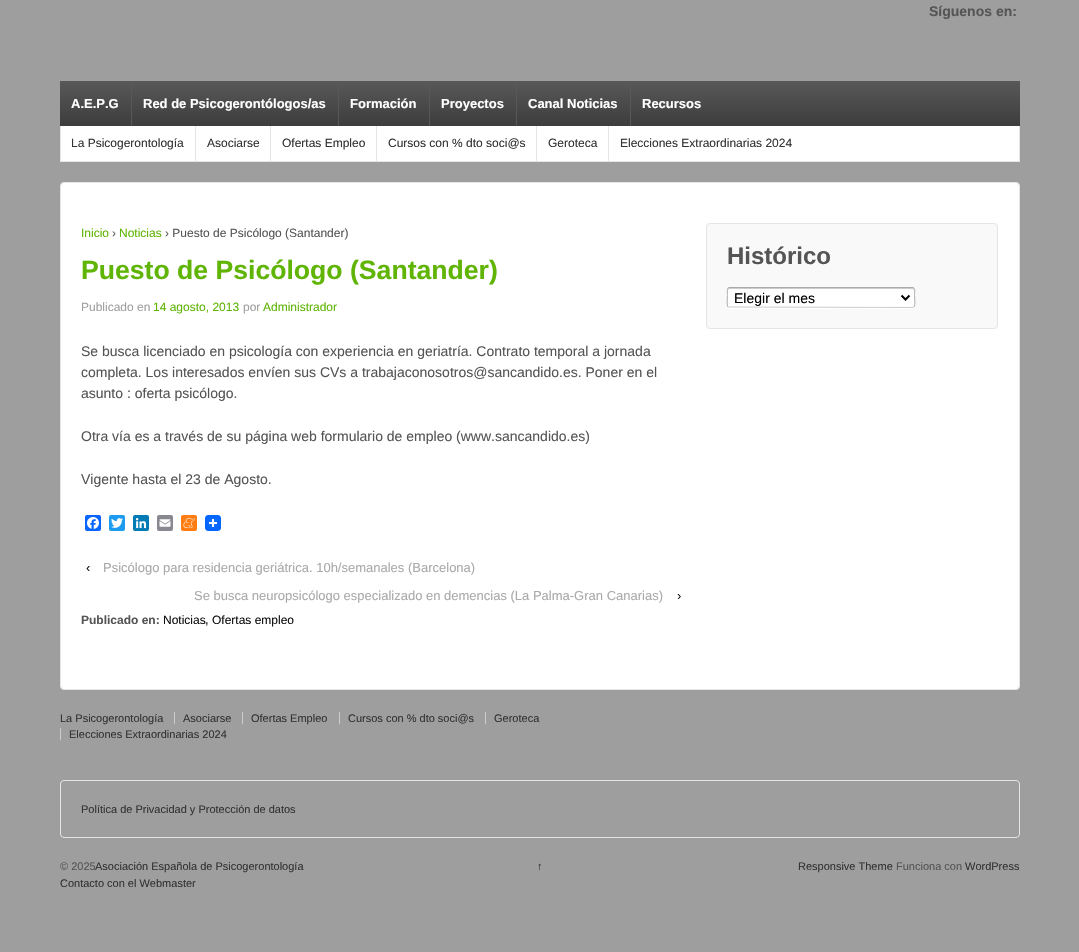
#include "include/core/SkBlurTypes.h"
#include "include/core/SkCanvas.h"
#include "include/core/SkData.h"
#include "include/core/SkFont.h"
#include "include/core/SkFontMgr.h"
#include "include/core/SkImage.h"
#include "include/core/SkMaskFilter.h"
#include "include/core/SkPaint.h"
#include "include/core/SkPathBuilder.h"
#include "include/core/SkTextBlob.h"
#include "include/effects/SkDashPathEffect.h"
#include "include/effects/SkGradientShader.h"
#include "include/utils/SkParsePath.h"

extern sk_sp<SkFontMgr> fontMgr;

static SkFont font(const char* family, int weight, float size, bool italic = false) {
    SkFontStyle style(weight, SkFontStyle::kNormal_Width,
        italic ? SkFontStyle::kItalic_Slant : SkFontStyle::kUpright_Slant);
    SkFont result(fontMgr->matchFamilyStyle(family, style), size);
    result.setSubpixel(true);
    return result;
}

static void drawLabel(SkCanvas* canvas, const char* s, float x, float y, const SkFont& font, SkColor color) {
    SkPaint ink(SkColor4f::FromColor(color));
    ink.setAntiAlias(true);
    canvas->drawString(s, x, y, font, ink);
}

static void fillRect(SkCanvas* canvas, float x, float y, float w, float h, SkColor color) {
    SkPaint ink(SkColor4f::FromColor(color));
    ink.setAntiAlias(true);
    canvas->drawRect(SkRect::MakeXYWH(x, y, w, h), ink);
}

static void fillRRect(SkCanvas* canvas, float x, float y, float w, float h, float radius, SkColor color) {
    SkPaint ink(SkColor4f::FromColor(color));
    ink.setAntiAlias(true);
    canvas->drawRoundRect(SkRect::MakeXYWH(x, y, w, h), radius, radius, ink);
}

static void drawPhoto(SkCanvas* canvas, const char* path, float x, float y, float w, float h) {
    auto image = SkImages::DeferredFromEncodedData(SkData::MakeFromFileName(path));
    canvas->drawImageRect(image, SkRect::MakeXYWH(x, y, w, h), SkSamplingOptions());
}

static SkPath parsePath(const char* data, bool evenOdd = false) {
    SkPath result = *SkParsePath::FromSVGString(data);
    if (evenOdd) result.setFillType(SkPathFillType::kEvenOdd);
    return result;
}

void draw(SkCanvas* canvas) {
    SkPaint paint;
    paint.setAntiAlias(true);
    canvas->clear(0xFF9E9E9E);
    SkFont font1 = font("Liberation Sans", 700, 14);
    drawLabel(canvas, "Síguenos en:", 929, 16, font1, 0xFF555555);
    {
        const SkColor colors[] = {0xFF585858, 0xFF3D3D3D};
        const float stops[] = {0, 1};
        const SkPoint ends[] = {{540, 81}, {540, 126}};
        paint.setShader(SkGradientShader::MakeLinear(ends, colors, stops, 2, SkTileMode::kClamp));
        paint.setAlpha(255);
    }
    canvas->drawRect(SkRect::MakeXYWH(60, 81, 960, 45), paint);
    SkFont font2 = font("Liberation Sans", 700, 13);
    drawLabel(canvas, "A.E.P.G", 71, 108, font2, 0xFFFFFFFF);
    fillRect(canvas, 131, 81, 1, 45, 0xFF585858);
    drawLabel(canvas, "Red de Psicogerontólogos/as", 143, 108, font2, 0xFFFFFFFF);
    fillRect(canvas, 338, 81, 1, 45, 0xFF585858);
    drawLabel(canvas, "Formación", 350, 108, font2, 0xFFFFFFFF);
    fillRect(canvas, 429, 81, 1, 45, 0xFF585858);
    drawLabel(canvas, "Proyectos", 441, 108, font2, 0xFFFFFFFF);
    fillRect(canvas, 516, 81, 1, 45, 0xFF585858);
    drawLabel(canvas, "Canal Noticias", 528, 108, font2, 0xFFFFFFFF);
    fillRect(canvas, 630, 81, 1, 45, 0xFF585858);
    drawLabel(canvas, "Recursos", 642, 108, font2, 0xFFFFFFFF);
    fillRect(canvas, 61, 126, 958, 35, 0xFFFFFFFF);
    fillRect(canvas, 1019, 126, 1, 36, 0xFFE5E5E5);
    fillRect(canvas, 60, 161, 960, 1, 0xFFE5E5E5);
    fillRect(canvas, 60, 126, 1, 36, 0xFFE5E5E5);
    SkFont font3 = font("Liberation Sans", 400, 12);
    drawLabel(canvas, "La Psicogerontología", 71, 147, font3, 0xFF333333);
    fillRect(canvas, 195, 126, 1, 35, 0xFFE5E5E5);
    drawLabel(canvas, "Asociarse", 207, 147, font3, 0xFF333333);
    fillRect(canvas, 270, 126, 1, 35, 0xFFE5E5E5);
    drawLabel(canvas, "Ofertas Empleo", 282, 147, font3, 0xFF333333);
    fillRect(canvas, 376, 126, 1, 35, 0xFFE5E5E5);
    drawLabel(canvas, "Cursos con % dto soci@s", 388, 147, font3, 0xFF333333);
    fillRect(canvas, 536, 126, 1, 35, 0xFFE5E5E5);
    drawLabel(canvas, "Geroteca", 548, 147, font3, 0xFF333333);
    fillRect(canvas, 608, 126, 1, 35, 0xFFE5E5E5);
    drawLabel(canvas, "Elecciones Extraordinarias 2024", 620, 147, font3, 0xFF333333);
    paint.setShader(nullptr);
    paint.setColor(0xFFFFFFFF);
    canvas->drawRoundRect(SkRect::MakeXYWH(60.5f, 182.5f, 959, 507), 3.5f, 3.5f, paint);
    paint.setStroke(true);
    paint.setStrokeWidth(1);
    paint.setColor(0xFFE5E5E5);
    canvas->drawRoundRect(SkRect::MakeXYWH(60.5f, 182.5f, 959, 507), 3.5f, 3.5f, paint);
    drawLabel(canvas, "Inicio", 81, 237, font3, 0xFF5FB404);
    drawLabel(canvas, "›", 112, 237, font3, 0xFF555555);
    drawLabel(canvas, "Noticias", 119, 237, font3, 0xFF5FB404);
    drawLabel(canvas, "› Puesto de Psicólogo (Santander)", 165, 237, font3, 0xFF555555);
    SkFont font4 = font("Liberation Sans", 700, 26.6f);
    drawLabel(canvas, "Puesto de Psicólogo (Santander)", 81, 279, font4, 0xFF5FB404);
    drawLabel(canvas, "Publicado en", 81, 311, font3, 0xFF9F9F9F);
    drawLabel(canvas, "14 agosto, 2013", 153, 311, font3, 0xFF5FB404);
    drawLabel(canvas, "por", 243, 311, font3, 0xFF9F9F9F);
    drawLabel(canvas, "Administrador", 263, 311, font3, 0xFF5FB404);
    SkFont font5 = font("Liberation Sans", 400, 14);
    drawLabel(canvas, "Se busca licenciado en psicología con experiencia en geriatría. Contrato temporal a jornada", 81, 356, font5, 0xFF555555);
    drawLabel(canvas, "completa. Los interesados envíen sus CVs a trabajaconosotros@sancandido.es. Poner en el", 81, 377, font5, 0xFF555555);
    drawLabel(canvas, "asunto : oferta psicólogo.", 81, 398, font5, 0xFF555555);
    drawLabel(canvas, "Otra vía es a través de su página web formulario de empleo (www.sancandido.es)", 81, 441, font5, 0xFF555555);
    drawLabel(canvas, "Vigente hasta el 23 de Agosto.", 81, 484, font5, 0xFF555555);
    fillRRect(canvas, 85, 515, 16, 16, 2, 0xFF0866FF);
    drawPhoto(canvas, "assets/img1.png", 87, 517, 12, 12);
    fillRRect(canvas, 109, 515, 16, 16, 2, 0xFF1D9BF0);
    drawPhoto(canvas, "assets/img2.png", 111, 518, 12, 10);
    fillRRect(canvas, 133, 515, 16, 16, 2, 0xFF007BB5);
    drawPhoto(canvas, "assets/img3.png", 136, 518, 11, 11);
    fillRRect(canvas, 157, 515, 16, 16, 2, 0xFF888990);
    drawPhoto(canvas, "assets/img4.png", 159, 519, 12, 8);
    fillRRect(canvas, 181, 515, 16, 16, 2, 0xFFFF7D12);
    drawPhoto(canvas, "assets/img5.png", 183, 518, 12, 11);
    drawPhoto(canvas, "assets/img6.png", 205, 515, 16, 16);
    SkFont font6 = font("Liberation Sans", 400, 13);
    drawLabel(canvas, "‹", 86, 572, font6, 0xFF111111);
    drawLabel(canvas, "Psicólogo para residencia geriátrica. 10h/semanales (Barcelona)", 103, 572, font6, 0xFFAAAAAA);
    drawLabel(canvas, "Se busca neuropsicólogo especializado en demencias (La Palma-Gran Canarias)", 194, 600, font6, 0xFFAAAAAA);
    drawLabel(canvas, "›", 677, 600, font6, 0xFF111111);
    SkFont font7 = font("Liberation Sans", 700, 12);
    drawLabel(canvas, "Publicado en:", 81, 624, font7, 0xFF555555);
    drawLabel(canvas, "Noticias", 163, 624, font3, 0xFF111111);
    drawLabel(canvas, ",", 205, 624, font7, 0xFF555555);
    drawLabel(canvas, "Ofertas empleo", 212, 624, font3, 0xFF111111);
    paint.setStroke(false);
    paint.setColor(0xFFF9F9F9);
    canvas->drawRoundRect(SkRect::MakeXYWH(706.5f, 223.5f, 291, 105), 3.5f, 3.5f, paint);
    paint.setStroke(true);
    paint.setColor(0xFFE5E5E5);
    canvas->drawRoundRect(SkRect::MakeXYWH(706.5f, 223.5f, 291, 105), 3.5f, 3.5f, paint);
    SkFont font8 = font("Liberation Sans", 700, 24);
    drawLabel(canvas, "Histórico", 727, 264, font8, 0xFF555555);
    paint.setStroke(false);
    paint.setColor(0xFFFFFFFF);
    canvas->drawPath(parsePath("M727 306V307C727 308 728 309 729 309H913C914 309 915 308 915 307V306C915 307 914 308 913 308H729C728 308 727 307 727 306Z"), paint);
    fillRRect(canvas, 727, 287, 188, 21, 2, 0xFFFFFFFF);
    paint.setColor(0xFFCCCCCC);
    canvas->drawPath(parsePath("M729 289H913L914 291V289C914 288 914 288 913 288H729C728 288 728 288 728 289V290Z"), paint);
    paint.setStroke(true);
    canvas->drawPath(parsePath("M914 307L913 307.5L728 307"), paint);
    paint.setColor(0xFFAAAAAA);
    canvas->drawPath(parsePath("M728 307C726.5 306 727.5 296.5 727.5 294.5C727.5 294 726.5 287.5 729 287.5H913C915.5 287.5 914.5 294 914.5 294.5C914.5 296.5 915.5 306 914 307"), paint);
    paint.setStrokeWidth(2);
    paint.setColor(0xFF000000);
    canvas->drawPath(parsePath("M901.5 295.5L905.5 299.5L909.5 295.5"), paint);
    drawLabel(canvas, "Elegir el mes", 734, 303, font5, 0xFF000000);
    SkFont font9 = font("Liberation Sans", 400, 11);
    drawLabel(canvas, "La Psicogerontología", 60, 722, font9, 0xFF333333);
    drawLabel(canvas, "Asociarse", 183, 722, font9, 0xFF333333);
    fillRect(canvas, 174, 712, 1, 12, 0xFFCCCCCC);
    drawLabel(canvas, "Ofertas Empleo", 251, 722, font9, 0xFF333333);
    fillRect(canvas, 242, 712, 1, 12, 0xFFCCCCCC);
    drawLabel(canvas, "Cursos con % dto soci@s", 348, 722, font9, 0xFF333333);
    fillRect(canvas, 339, 712, 1, 12, 0xFFCCCCCC);
    drawLabel(canvas, "Geroteca", 494, 722, font9, 0xFF333333);
    fillRect(canvas, 485, 712, 1, 12, 0xFFCCCCCC);
    drawLabel(canvas, "Elecciones Extraordinarias 2024", 69, 738, font9, 0xFF333333);
    fillRect(canvas, 60, 728, 1, 12, 0xFFCCCCCC);
    paint.setStrokeWidth(1);
    paint.setColor(0xFFE5E5E5);
    canvas->drawRoundRect(SkRect::MakeXYWH(60.5f, 780.5f, 959, 57), 3.5f, 3.5f, paint);
    drawLabel(canvas, "Política de Privacidad y Protección de datos", 81, 813, font9, 0xFF333333);
    drawLabel(canvas, "© 2025", 60, 870, font9, 0xFF555555);
    drawLabel(canvas, "Asociación Española de Psicogerontología", 95, 870, font9, 0xFF333333);
    drawLabel(canvas, "Contacto con el Webmaster", 60, 887, font9, 0xFF333333);
    drawLabel(canvas, "↑", 537, 870, font9, 0xFF333333);
    drawLabel(canvas, "Responsive Theme", 798, 870, font9, 0xFF333333);
    drawLabel(canvas, "Funciona con", 896, 870, font9, 0xFF555555);
    drawLabel(canvas, "WordPress", 965, 870, font9, 0xFF333333);
}
